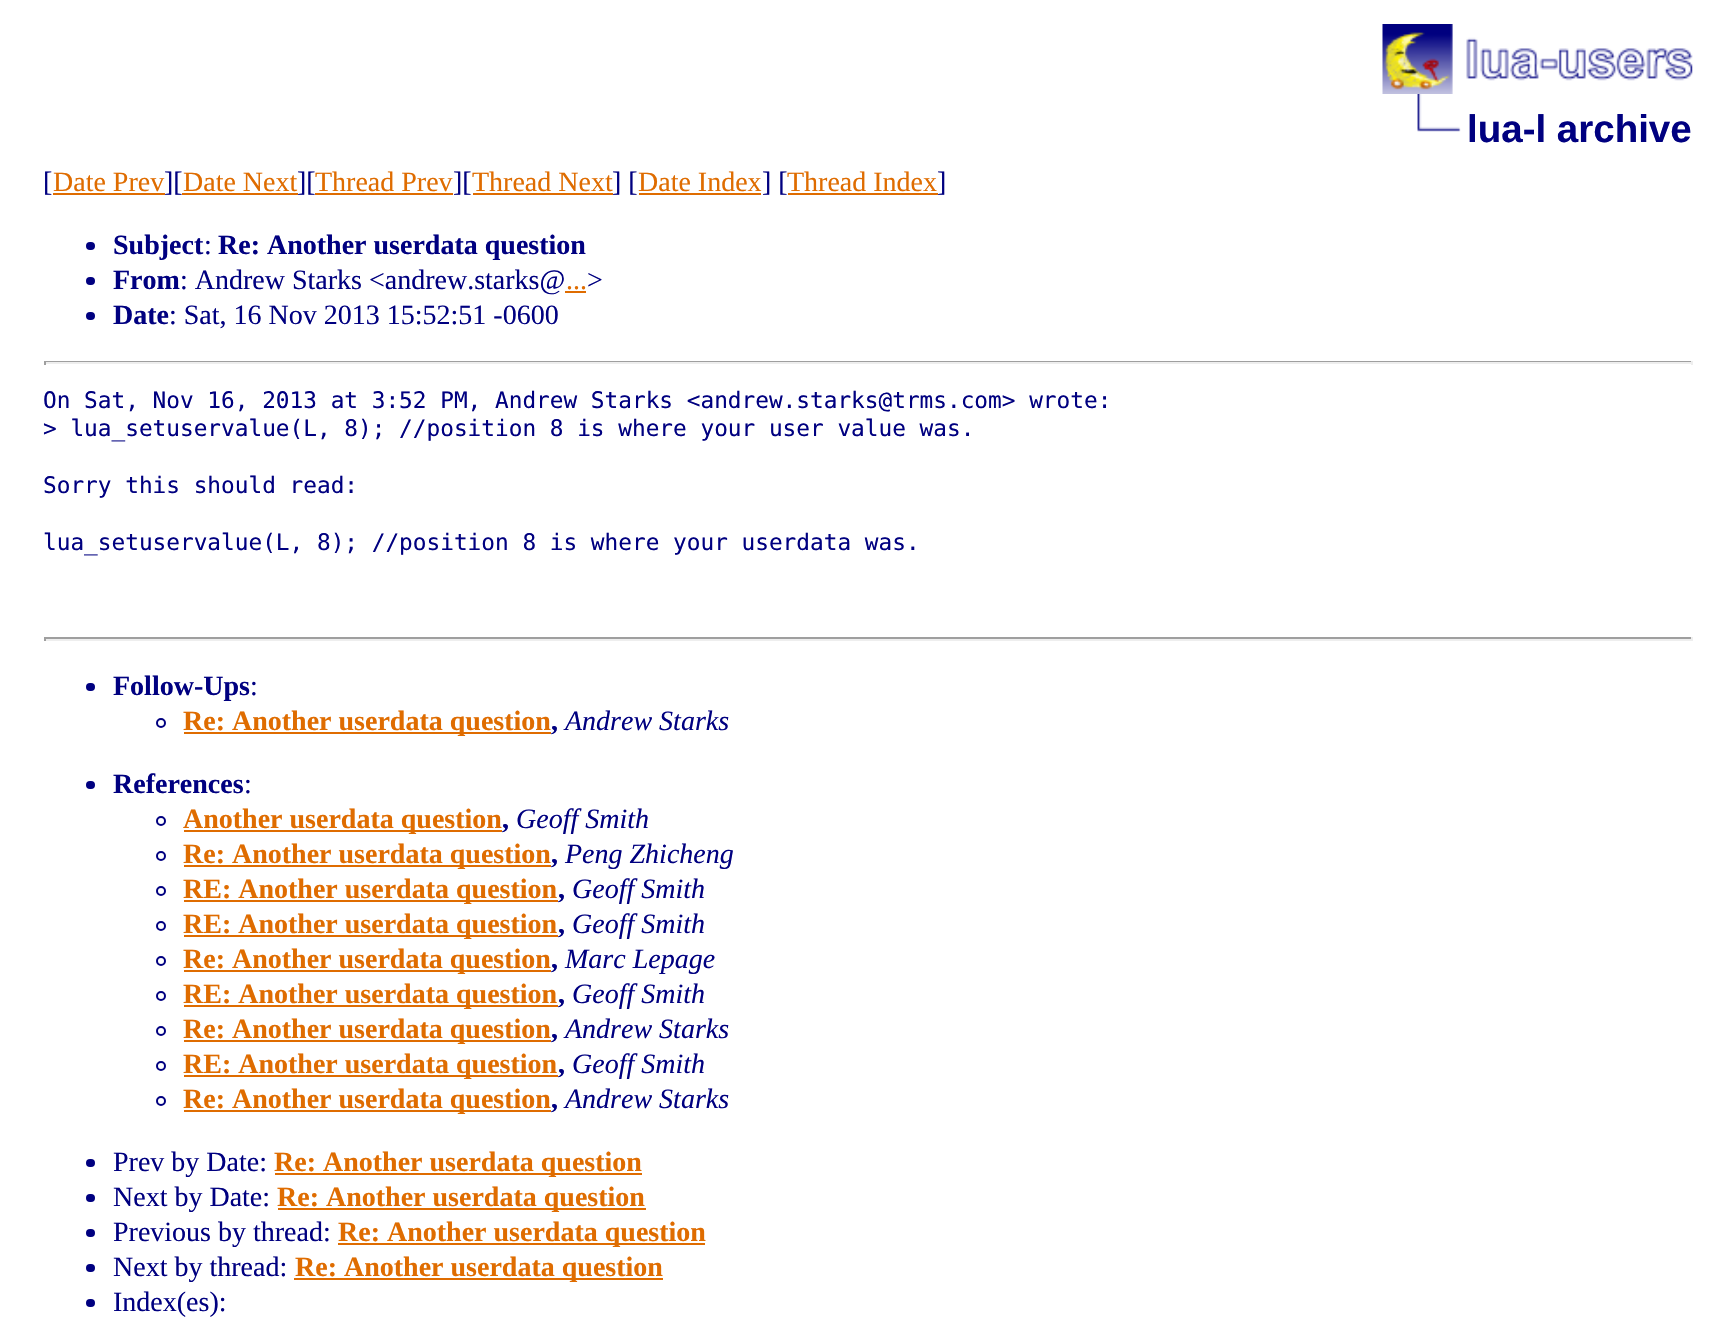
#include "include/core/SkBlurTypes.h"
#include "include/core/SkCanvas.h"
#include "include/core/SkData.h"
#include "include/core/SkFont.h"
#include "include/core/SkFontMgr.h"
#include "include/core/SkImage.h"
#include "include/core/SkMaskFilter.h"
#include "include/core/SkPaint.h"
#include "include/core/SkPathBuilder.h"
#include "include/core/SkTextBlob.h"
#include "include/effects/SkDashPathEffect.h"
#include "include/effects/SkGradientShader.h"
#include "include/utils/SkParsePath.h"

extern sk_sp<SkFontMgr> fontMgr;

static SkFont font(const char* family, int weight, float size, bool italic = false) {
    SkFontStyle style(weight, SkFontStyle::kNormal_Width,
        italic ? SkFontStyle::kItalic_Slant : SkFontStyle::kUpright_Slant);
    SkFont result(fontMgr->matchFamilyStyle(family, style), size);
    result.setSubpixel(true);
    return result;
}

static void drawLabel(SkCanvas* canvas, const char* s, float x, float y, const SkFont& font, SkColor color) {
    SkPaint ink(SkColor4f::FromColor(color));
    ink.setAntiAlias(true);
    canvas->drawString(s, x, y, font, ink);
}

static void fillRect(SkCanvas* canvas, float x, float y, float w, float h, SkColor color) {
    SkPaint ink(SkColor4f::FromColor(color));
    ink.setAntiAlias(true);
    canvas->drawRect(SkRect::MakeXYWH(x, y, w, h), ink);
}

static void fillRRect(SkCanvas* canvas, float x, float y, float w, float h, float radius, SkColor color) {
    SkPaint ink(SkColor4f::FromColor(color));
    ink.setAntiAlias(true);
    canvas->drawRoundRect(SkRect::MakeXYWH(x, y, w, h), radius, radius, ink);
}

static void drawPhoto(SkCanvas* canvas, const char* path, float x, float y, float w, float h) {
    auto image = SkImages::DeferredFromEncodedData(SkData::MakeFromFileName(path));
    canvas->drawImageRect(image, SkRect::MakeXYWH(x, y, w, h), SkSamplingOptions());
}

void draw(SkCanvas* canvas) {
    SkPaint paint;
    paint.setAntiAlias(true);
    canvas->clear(0xFFFFFFFF);
    drawPhoto(canvas, "assets/img1.png", 1382, 24, 311, 70);
    drawPhoto(canvas, "assets/img2.png", 1417, 94, 44, 38);
    SkFont font1 = font("Liberation Sans", 700, 38.5f);
    drawLabel(canvas, "lua-l archive", 1467, 142, font1, 0xFF000080);
    SkFont font2 = font("Liberation Serif", 400, 28);
    drawLabel(canvas, "[", 43, 191, font2, 0xFF000080);
    drawLabel(canvas, "Date Prev", 53, 191, font2, 0xFFDF6C00);
    fillRect(canvas, 53, 193, 112, 2, 0xFFDF6C00);
    drawLabel(canvas, "][", 164, 191, font2, 0xFF000080);
    drawLabel(canvas, "Date Next", 183, 191, font2, 0xFFDF6C00);
    fillRect(canvas, 182, 193, 116, 2, 0xFFDF6C00);
    drawLabel(canvas, "][", 297, 191, font2, 0xFF000080);
    drawLabel(canvas, "Thread Prev", 315, 191, font2, 0xFFDF6C00);
    fillRect(canvas, 315, 193, 138, 2, 0xFFDF6C00);
    drawLabel(canvas, "][", 453, 191, font2, 0xFF000080);
    drawLabel(canvas, "Thread Next", 472, 191, font2, 0xFFDF6C00);
    fillRect(canvas, 473, 193, 140, 2, 0xFFDF6C00);
    drawLabel(canvas, "] [", 612, 191, font2, 0xFF000080);
    drawLabel(canvas, "Date Index", 638, 191, font2, 0xFFDF6C00);
    fillRect(canvas, 639, 193, 122, 2, 0xFFDF6C00);
    drawLabel(canvas, "] [", 762, 191, font2, 0xFF000080);
    drawLabel(canvas, "Thread Index", 787, 191, font2, 0xFFDF6C00);
    fillRect(canvas, 788, 193, 150, 2, 0xFFDF6C00);
    drawLabel(canvas, "]", 937, 191, font2, 0xFF000080);
    fillRRect(canvas, 86, 242, 9, 8, 4, 0xFF000080);
    SkFont font3 = font("Liberation Serif", 700, 28);
    drawLabel(canvas, "Subject", 113, 254, font3, 0xFF000080);
    drawLabel(canvas, ":", 204, 254, font2, 0xFF000080);
    drawLabel(canvas, "Re: Another userdata question", 218, 254, font3, 0xFF000080);
    fillRRect(canvas, 86, 277, 9, 8, 4, 0xFF000080);
    drawLabel(canvas, "From", 113, 289, font3, 0xFF000080);
    drawLabel(canvas, ": Andrew Starks <andrew.starks@", 180, 289, font2, 0xFF000080);
    drawLabel(canvas, ">", 587, 289, font2, 0xFF000080);
    drawLabel(canvas, "...", 566, 289, font2, 0xFFDF6C00);
    fillRect(canvas, 565, 291, 21, 2, 0xFFDF6C00);
    fillRRect(canvas, 86, 312, 9, 8, 4, 0xFF000080);
    drawLabel(canvas, "Date", 113, 324, font3, 0xFF000080);
    drawLabel(canvas, ": Sat, 16 Nov 2013 15:52:51 -0600", 169, 324, font2, 0xFF000080);
    fillRect(canvas, 44, 361, 1648, 1, 0xFF9F9F9F);
    fillRect(canvas, 1691, 361, 2, 4, 0xFFEEEEEE);
    fillRect(canvas, 44, 362, 1648, 2, 0xFFEEEEEE);
    fillRect(canvas, 44, 361, 2, 4, 0xFF9F9F9F);
    SkFont font4 = font("DejaVu Sans Mono", 400, 22.75f);
    drawLabel(canvas, "On Sat, Nov 16, 2013 at 3:52 PM, Andrew Starks <andrew.starks@trms.com> wrote:", 43, 408, font4, 0xFF000080);
    drawLabel(canvas, "> lua_setuservalue(L, 8); //position 8 is where your user value was.", 43, 436, font4, 0xFF000080);
    drawLabel(canvas, "Sorry this should read:", 43, 493, font4, 0xFF000080);
    drawLabel(canvas, "lua_setuservalue(L, 8); //position 8 is where your userdata was.", 43, 550, font4, 0xFF000080);
    fillRect(canvas, 44, 637, 1648, 2, 0xFF9F9F9F);
    fillRect(canvas, 1691, 637, 2, 4, 0xFFEEEEEE);
    fillRect(canvas, 44, 639, 1648, 2, 0xFFEEEEEE);
    fillRect(canvas, 44, 637, 2, 4, 0xFF9F9F9F);
    fillRRect(canvas, 86, 683, 9, 8, 4, 0xFF000080);
    drawLabel(canvas, "Follow-Ups", 113, 695, font3, 0xFF000080);
    drawLabel(canvas, ":", 250, 695, font2, 0xFF000080);
    paint.setStroke(true);
    paint.setStrokeWidth(2);
    paint.setColor(0xFF000080);
    canvas->drawCircle(161, 723, 4, paint);
    fillRect(canvas, 184, 732, 367, 2, 0xFFDF6C00);
    drawLabel(canvas, "Re: Another userdata question", 183, 730, font3, 0xFFDF6C00);
    SkFont font5 = font("Liberation Serif", 400, 28, true);
    drawLabel(canvas, "Andrew Starks", 565, 730, font5, 0xFF000080);
    drawLabel(canvas, ",", 551, 730, font3, 0xFF000080);
    fillRRect(canvas, 86, 781, 9, 8, 4, 0xFF000080);
    drawLabel(canvas, "References", 113, 793, font3, 0xFF000080);
    drawLabel(canvas, ":", 244, 793, font2, 0xFF000080);
    canvas->drawCircle(161, 821, 4, paint);
    fillRect(canvas, 184, 830, 318, 2, 0xFFDF6C00);
    drawLabel(canvas, "Another userdata question", 183, 828, font3, 0xFFDF6C00);
    drawLabel(canvas, "Geoff Smith", 516, 828, font5, 0xFF000080);
    drawLabel(canvas, ",", 502, 828, font3, 0xFF000080);
    canvas->drawCircle(161, 856, 4, paint);
    fillRect(canvas, 184, 865, 367, 2, 0xFFDF6C00);
    drawLabel(canvas, "Re: Another userdata question", 183, 863, font3, 0xFFDF6C00);
    drawLabel(canvas, "Peng Zhicheng", 565, 863, font5, 0xFF000080);
    drawLabel(canvas, ",", 551, 863, font3, 0xFF000080);
    canvas->drawCircle(161, 891, 4, paint);
    fillRect(canvas, 184, 900, 374, 2, 0xFFDF6C00);
    drawLabel(canvas, "RE: Another userdata question", 183, 898, font3, 0xFFDF6C00);
    drawLabel(canvas, "Geoff Smith", 572, 898, font5, 0xFF000080);
    drawLabel(canvas, ",", 558, 898, font3, 0xFF000080);
    canvas->drawCircle(161, 926, 4, paint);
    fillRect(canvas, 184, 935, 374, 2, 0xFFDF6C00);
    drawLabel(canvas, "RE: Another userdata question", 183, 933, font3, 0xFFDF6C00);
    drawLabel(canvas, "Geoff Smith", 572, 933, font5, 0xFF000080);
    drawLabel(canvas, ",", 558, 933, font3, 0xFF000080);
    canvas->drawCircle(161, 961, 4, paint);
    fillRect(canvas, 184, 970, 367, 2, 0xFFDF6C00);
    drawLabel(canvas, "Re: Another userdata question", 183, 968, font3, 0xFFDF6C00);
    drawLabel(canvas, "Marc Lepage", 565, 968, font5, 0xFF000080);
    drawLabel(canvas, ",", 551, 968, font3, 0xFF000080);
    canvas->drawCircle(161, 996, 4, paint);
    fillRect(canvas, 184, 1005, 374, 2, 0xFFDF6C00);
    drawLabel(canvas, "RE: Another userdata question", 183, 1003, font3, 0xFFDF6C00);
    drawLabel(canvas, "Geoff Smith", 572, 1003, font5, 0xFF000080);
    drawLabel(canvas, ",", 558, 1003, font3, 0xFF000080);
    canvas->drawCircle(161, 1031, 4, paint);
    fillRect(canvas, 184, 1040, 367, 2, 0xFFDF6C00);
    drawLabel(canvas, "Re: Another userdata question", 183, 1038, font3, 0xFFDF6C00);
    drawLabel(canvas, "Andrew Starks", 565, 1038, font5, 0xFF000080);
    drawLabel(canvas, ",", 551, 1038, font3, 0xFF000080);
    canvas->drawCircle(161, 1066, 4, paint);
    fillRect(canvas, 184, 1075, 374, 2, 0xFFDF6C00);
    drawLabel(canvas, "RE: Another userdata question", 183, 1073, font3, 0xFFDF6C00);
    drawLabel(canvas, "Geoff Smith", 572, 1073, font5, 0xFF000080);
    drawLabel(canvas, ",", 558, 1073, font3, 0xFF000080);
    canvas->drawCircle(161, 1101, 4, paint);
    fillRect(canvas, 184, 1110, 367, 2, 0xFFDF6C00);
    drawLabel(canvas, "Re: Another userdata question", 183, 1108, font3, 0xFFDF6C00);
    drawLabel(canvas, "Andrew Starks", 565, 1108, font5, 0xFF000080);
    drawLabel(canvas, ",", 551, 1108, font3, 0xFF000080);
    fillRRect(canvas, 86, 1159, 9, 8, 4, 0xFF000080);
    drawLabel(canvas, "Prev by Date:", 113, 1171, font2, 0xFF000080);
    fillRect(canvas, 275, 1173, 367, 2, 0xFFDF6C00);
    drawLabel(canvas, "Re: Another userdata question", 274, 1171, font3, 0xFFDF6C00);
    fillRRect(canvas, 86, 1194, 9, 8, 4, 0xFF000080);
    drawLabel(canvas, "Next by Date:", 113, 1206, font2, 0xFF000080);
    fillRect(canvas, 278, 1208, 368, 2, 0xFFDF6C00);
    drawLabel(canvas, "Re: Another userdata question", 277, 1206, font3, 0xFFDF6C00);
    fillRRect(canvas, 86, 1229, 9, 8, 4, 0xFF000080);
    drawLabel(canvas, "Previous by thread:", 113, 1241, font2, 0xFF000080);
    fillRect(canvas, 338, 1243, 367, 2, 0xFFDF6C00);
    drawLabel(canvas, "Re: Another userdata question", 338, 1241, font3, 0xFFDF6C00);
    fillRRect(canvas, 86, 1264, 9, 8, 4, 0xFF000080);
    drawLabel(canvas, "Next by thread:", 113, 1276, font2, 0xFF000080);
    fillRect(canvas, 294, 1278, 369, 2, 0xFFDF6C00);
    drawLabel(canvas, "Re: Another userdata question", 295, 1276, font3, 0xFFDF6C00);
    fillRRect(canvas, 86, 1299, 9, 8, 4, 0xFF000080);
    drawLabel(canvas, "Index(es):", 113, 1311, font2, 0xFF000080);
}
